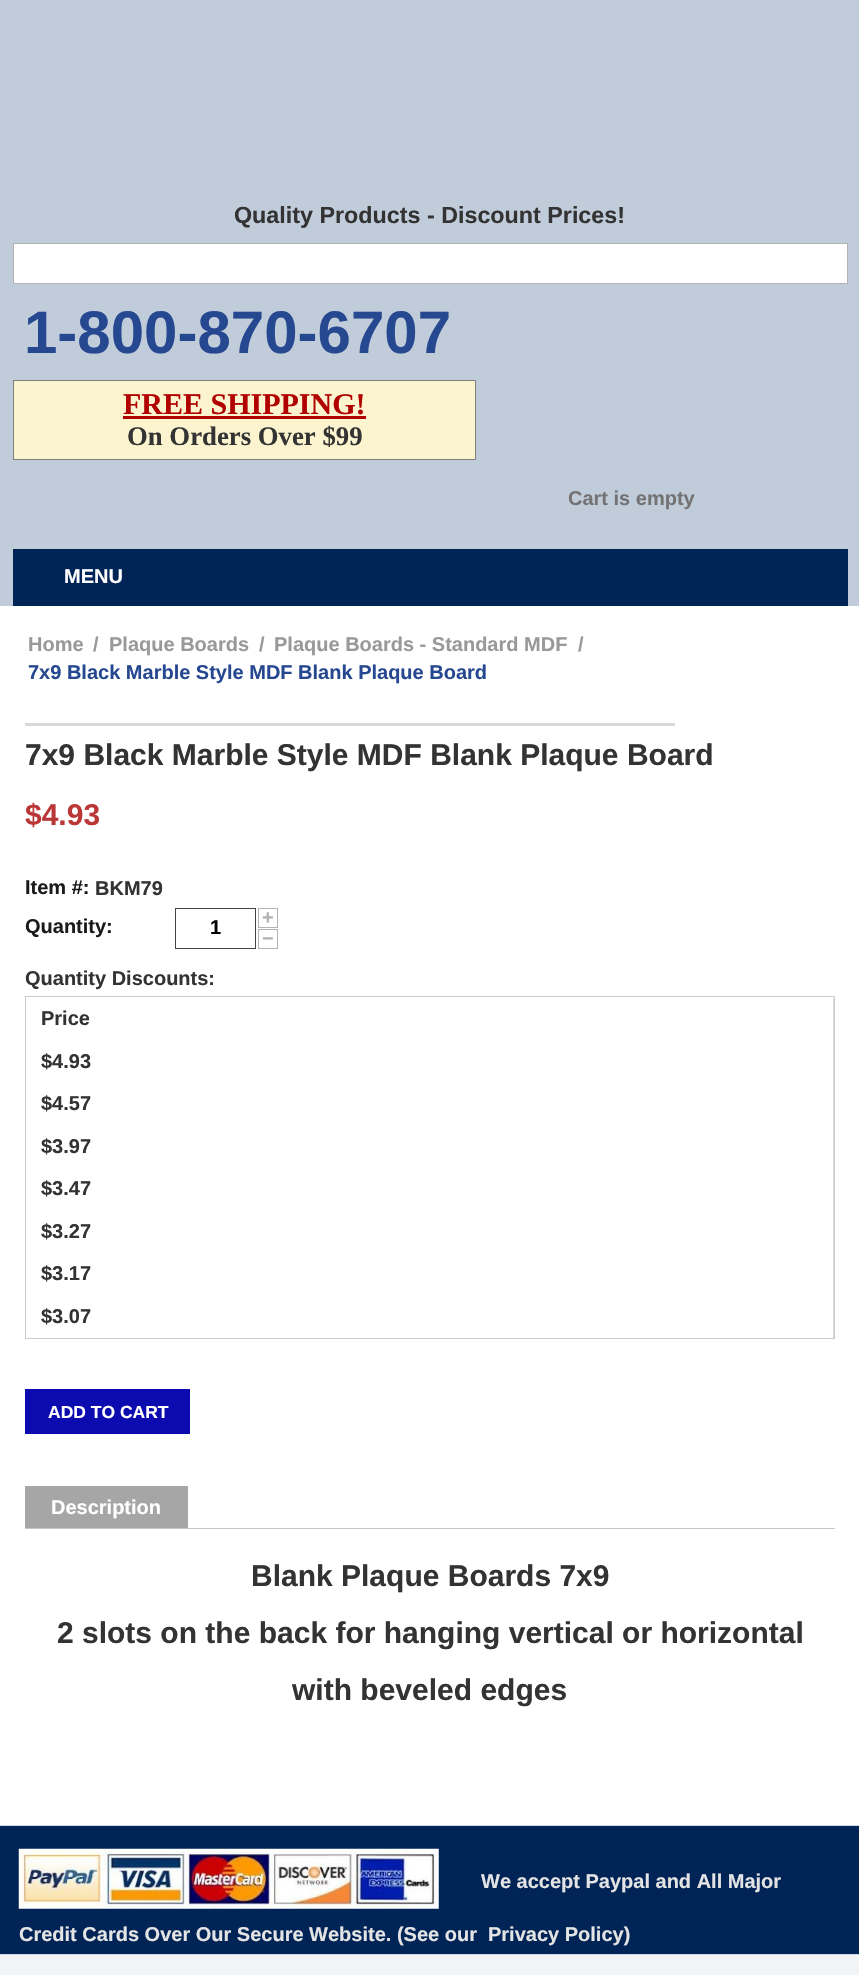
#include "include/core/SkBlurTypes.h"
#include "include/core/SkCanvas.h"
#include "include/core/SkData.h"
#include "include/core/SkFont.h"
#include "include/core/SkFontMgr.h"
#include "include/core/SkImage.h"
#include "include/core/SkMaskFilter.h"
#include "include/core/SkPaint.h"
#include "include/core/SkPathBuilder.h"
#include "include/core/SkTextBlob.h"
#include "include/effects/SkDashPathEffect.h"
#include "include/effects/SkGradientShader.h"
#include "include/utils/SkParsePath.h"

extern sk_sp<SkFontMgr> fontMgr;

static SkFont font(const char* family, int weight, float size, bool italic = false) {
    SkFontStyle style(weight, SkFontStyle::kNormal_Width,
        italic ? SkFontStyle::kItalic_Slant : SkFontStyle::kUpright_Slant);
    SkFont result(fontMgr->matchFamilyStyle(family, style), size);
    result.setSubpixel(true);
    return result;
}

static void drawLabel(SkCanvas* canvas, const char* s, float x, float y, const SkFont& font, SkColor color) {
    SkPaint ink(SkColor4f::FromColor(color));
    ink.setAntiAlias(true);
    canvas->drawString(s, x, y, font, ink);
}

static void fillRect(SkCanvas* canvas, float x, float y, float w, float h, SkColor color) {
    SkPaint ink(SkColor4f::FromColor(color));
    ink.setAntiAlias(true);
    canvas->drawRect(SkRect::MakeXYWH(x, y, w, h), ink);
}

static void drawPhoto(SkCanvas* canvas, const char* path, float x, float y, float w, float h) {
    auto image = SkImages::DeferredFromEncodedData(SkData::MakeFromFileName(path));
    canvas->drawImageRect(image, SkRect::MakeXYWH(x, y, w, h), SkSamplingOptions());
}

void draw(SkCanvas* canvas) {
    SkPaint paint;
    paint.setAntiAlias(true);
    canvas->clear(0xFFC1CCDB);
    SkFont font1 = font("Liberation Sans", 700, 23.3f);
    drawLabel(canvas, "Quality Products - Discount Prices!", 234, 223, font1, 0xFF333333);
    paint.setColor(0xFFFFFFFF);
    canvas->drawRect(SkRect::MakeXYWH(13.5f, 243.5f, 834, 40), paint);
    paint.setStroke(true);
    paint.setStrokeWidth(1);
    paint.setColor(0xFFB3B3B3);
    canvas->drawRect(SkRect::MakeXYWH(13.5f, 243.5f, 834, 40), paint);
    SkFont font2 = font("Liberation Sans", 700, 60);
    drawLabel(canvas, "1-800-870-6707", 24, 353, font2, 0xFF264890);
    fillRect(canvas, 13, 380, 463, 1, 0xFF808080);
    fillRect(canvas, 475, 380, 1, 80, 0xFF808080);
    fillRect(canvas, 13, 459, 463, 1, 0xFF808080);
    fillRect(canvas, 13, 380, 1, 80, 0xFF808080);
    fillRect(canvas, 14, 381, 461, 78, 0xFFFBF4CE);
    SkFont font3 = font("Liberation Serif", 700, 30);
    drawLabel(canvas, "FREE SHIPPING!", 123, 414, font3, 0xFFB00000);
    fillRect(canvas, 123, 416, 243, 3, 0xFFB00000);
    SkFont font4 = font("Liberation Serif", 700, 26.75f);
    drawLabel(canvas, "On Orders Over $99", 127, 445, font4, 0xFF333333);
    SkFont font5 = font("Liberation Sans", 700, 20);
    drawLabel(canvas, "Cart is empty", 568, 505, font5, 0xFF737373);
    fillRect(canvas, 13, 549, 835, 57, 0xFF002456);
    drawLabel(canvas, "MENU", 64, 583, font5, 0xFFFFFFFF);
    fillRect(canvas, 0, 606, 859, 1219, 0xFFFFFFFF);
    drawLabel(canvas, "Home", 28, 651, font5, 0xFF999999);
    drawLabel(canvas, "/", 93, 651, font5, 0xFF999999);
    drawLabel(canvas, "Plaque Boards", 109, 651, font5, 0xFF999999);
    drawLabel(canvas, "/", 259, 651, font5, 0xFF999999);
    drawLabel(canvas, "Plaque Boards - Standard MDF", 274, 651, font5, 0xFF999999);
    drawLabel(canvas, "/", 578, 651, font5, 0xFF999999);
    drawLabel(canvas, "7x9 Black Marble Style MDF Blank Plaque Board", 28, 679, font5, 0xFF264890);
    fillRect(canvas, 25, 723, 650, 3, 0xFFD9D9D9);
    SkFont font6 = font("Liberation Sans", 700, 30);
    drawLabel(canvas, "7x9 Black Marble Style MDF Blank Plaque Board", 25, 765, font6, 0xFF333333);
    drawLabel(canvas, "$4.93", 25, 825, font6, 0xFFBB3737);
    drawLabel(canvas, "Item #:", 25, 894, font5, 0xFF1A1A1A);
    drawLabel(canvas, "BKM79", 95, 895, font5, 0xFF333333);
    drawLabel(canvas, "Quantity:", 25, 933, font5, 0xFF1A1A1A);
    canvas->drawRect(SkRect::MakeXYWH(258.5f, 908.5f, 19, 19), paint);
    drawLabel(canvas, "+", 262, 924, font5, 0xFFB3B3B3);
    paint.setColor(0xFF434343);
    canvas->drawRect(SkRect::MakeXYWH(175.5f, 908.5f, 80, 40), paint);
    drawLabel(canvas, "1", 210, 934, font5, 0xFF000000);
    paint.setColor(0xFFB3B3B3);
    canvas->drawRect(SkRect::MakeXYWH(258.5f, 929.5f, 19, 19), paint);
    drawLabel(canvas, "−", 262, 945, font5, 0xFFB3B3B3);
    drawLabel(canvas, "Quantity Discounts:", 25, 985, font5, 0xFF333333);
    paint.setColor(0xFFCCCCCC);
    canvas->drawRect(SkRect::MakeXYWH(25.5f, 996.5f, 809, 342), paint);
    fillRect(canvas, 833, 998, 1, 340, 0xFFD9D9D9);
    drawLabel(canvas, "Price", 41, 1025, font5, 0xFF333333);
    drawLabel(canvas, "$4.93", 41, 1068, font5, 0xFF333333);
    drawLabel(canvas, "$4.57", 41, 1110, font5, 0xFF333333);
    drawLabel(canvas, "$3.97", 41, 1153, font5, 0xFF333333);
    drawLabel(canvas, "$3.47", 41, 1195, font5, 0xFF333333);
    drawLabel(canvas, "$3.27", 41, 1238, font5, 0xFF333333);
    drawLabel(canvas, "$3.17", 41, 1280, font5, 0xFF333333);
    drawLabel(canvas, "$3.07", 41, 1323, font5, 0xFF333333);
    fillRect(canvas, 25, 1389, 165, 45, 0xFF0B0BB0);
    SkFont font7 = font("Liberation Sans", 700, 17.5f);
    drawLabel(canvas, "ADD TO CART", 48, 1418, font7, 0xFFFFFFFF);
    fillRect(canvas, 25, 1528, 810, 1, 0xFFC7C7C7);
    fillRect(canvas, 25, 1486, 163, 42, 0xFFA6A6A6);
    drawLabel(canvas, "Description", 51, 1514, font5, 0xFFFFFFFF);
    drawLabel(canvas, "Blank Plaque Boards 7x9", 251, 1586, font6, 0xFF333333);
    drawLabel(canvas, "2 slots on the back for hanging vertical or horizontal", 57, 1643, font6, 0xFF333333);
    drawLabel(canvas, "with beveled edges", 292, 1700, font6, 0xFF333333);
    fillRect(canvas, 0, 1955, 859, 20, 0xFFF2F4F8);
    fillRect(canvas, 0, 1826, 859, 128, 0xFF002456);
    fillRect(canvas, 0, 1825, 859, 1, 0xFFD1D8E6);
    fillRect(canvas, 0, 1954, 859, 1, 0xFFD1D8E6);
    drawPhoto(canvas, "assets/img1.png", 18, 1848, 421, 61);
    drawLabel(canvas, "We accept Paypal and All Major", 481, 1888, font5, 0xFFE4E4E4);
    drawLabel(canvas, "Credit Cards Over Our Secure Website. (See our", 19, 1941, font5, 0xFFE4E4E4);
    drawLabel(canvas, "Privacy Policy)", 488, 1941, font5, 0xFFE4E4E4);
}
